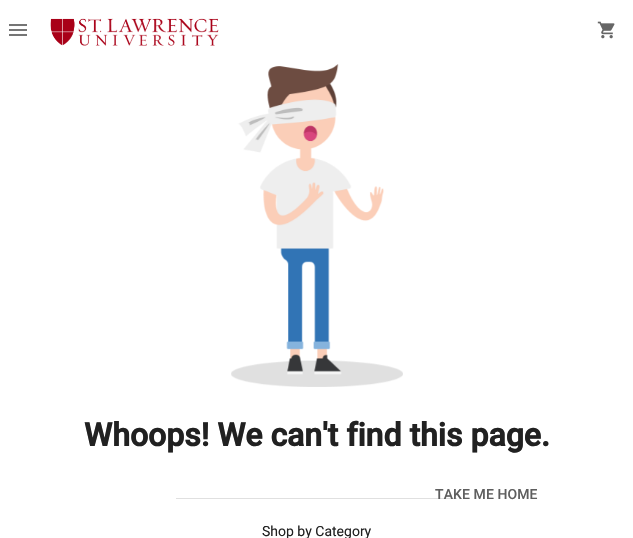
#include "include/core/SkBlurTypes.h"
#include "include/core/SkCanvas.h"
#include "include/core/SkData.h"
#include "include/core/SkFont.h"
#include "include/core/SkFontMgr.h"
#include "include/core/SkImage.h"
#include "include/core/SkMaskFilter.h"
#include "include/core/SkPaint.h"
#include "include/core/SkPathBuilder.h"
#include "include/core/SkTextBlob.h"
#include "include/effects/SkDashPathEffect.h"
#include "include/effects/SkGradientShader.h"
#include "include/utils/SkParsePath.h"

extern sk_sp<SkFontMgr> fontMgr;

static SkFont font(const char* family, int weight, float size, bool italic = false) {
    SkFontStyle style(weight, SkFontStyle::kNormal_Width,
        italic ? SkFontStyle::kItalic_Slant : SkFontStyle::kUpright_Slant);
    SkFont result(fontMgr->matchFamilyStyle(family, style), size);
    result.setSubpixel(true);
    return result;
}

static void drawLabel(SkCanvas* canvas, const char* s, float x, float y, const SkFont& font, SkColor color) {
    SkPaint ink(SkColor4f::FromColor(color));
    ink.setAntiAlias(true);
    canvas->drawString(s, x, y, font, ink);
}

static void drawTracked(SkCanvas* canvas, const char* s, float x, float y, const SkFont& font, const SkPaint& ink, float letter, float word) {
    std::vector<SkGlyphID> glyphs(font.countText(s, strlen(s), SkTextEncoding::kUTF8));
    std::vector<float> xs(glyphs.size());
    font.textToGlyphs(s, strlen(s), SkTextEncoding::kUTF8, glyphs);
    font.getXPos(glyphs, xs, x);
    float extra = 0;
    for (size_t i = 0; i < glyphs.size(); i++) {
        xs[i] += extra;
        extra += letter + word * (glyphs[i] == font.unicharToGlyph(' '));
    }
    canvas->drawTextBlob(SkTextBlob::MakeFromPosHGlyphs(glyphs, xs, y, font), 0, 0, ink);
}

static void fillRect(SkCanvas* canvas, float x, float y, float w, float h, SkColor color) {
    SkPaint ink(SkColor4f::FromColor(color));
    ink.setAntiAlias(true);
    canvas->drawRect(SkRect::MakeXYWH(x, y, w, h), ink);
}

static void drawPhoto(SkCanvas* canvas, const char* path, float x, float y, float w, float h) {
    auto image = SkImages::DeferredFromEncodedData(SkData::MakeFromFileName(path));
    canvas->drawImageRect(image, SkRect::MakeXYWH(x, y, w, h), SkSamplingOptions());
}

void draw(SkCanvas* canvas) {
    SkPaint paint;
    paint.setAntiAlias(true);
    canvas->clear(0xFFFFFFFF);
    drawPhoto(canvas, "assets/img1.png", 9, 24, 18, 12);
    drawPhoto(canvas, "assets/img2.png", 50, 18, 169, 28);
    drawPhoto(canvas, "assets/img3.png", 597, 21, 18, 18);
    drawPhoto(canvas, "assets/img4.png", 231, 64, 172, 323);
    SkFont font1 = font("Roboto", 700, 32);
    drawLabel(canvas, "Whoops! We can't find this page.", 84, 446, font1, 0xFF212121);
    fillRect(canvas, 176, 498, 281, 1, 0xFFE0E0E0);
    SkFont font2 = font("Roboto", 500, 14);
    paint.setColor(0xFF5E5E5E);
    drawTracked(canvas, "TAKE ME HOME", 435, 499, font2, paint, 0.1f, 0);
    SkFont font3 = font("Roboto", 400, 14);
    drawLabel(canvas, "Shop by Category", 262, 536, font3, 0xFF212121);
}
